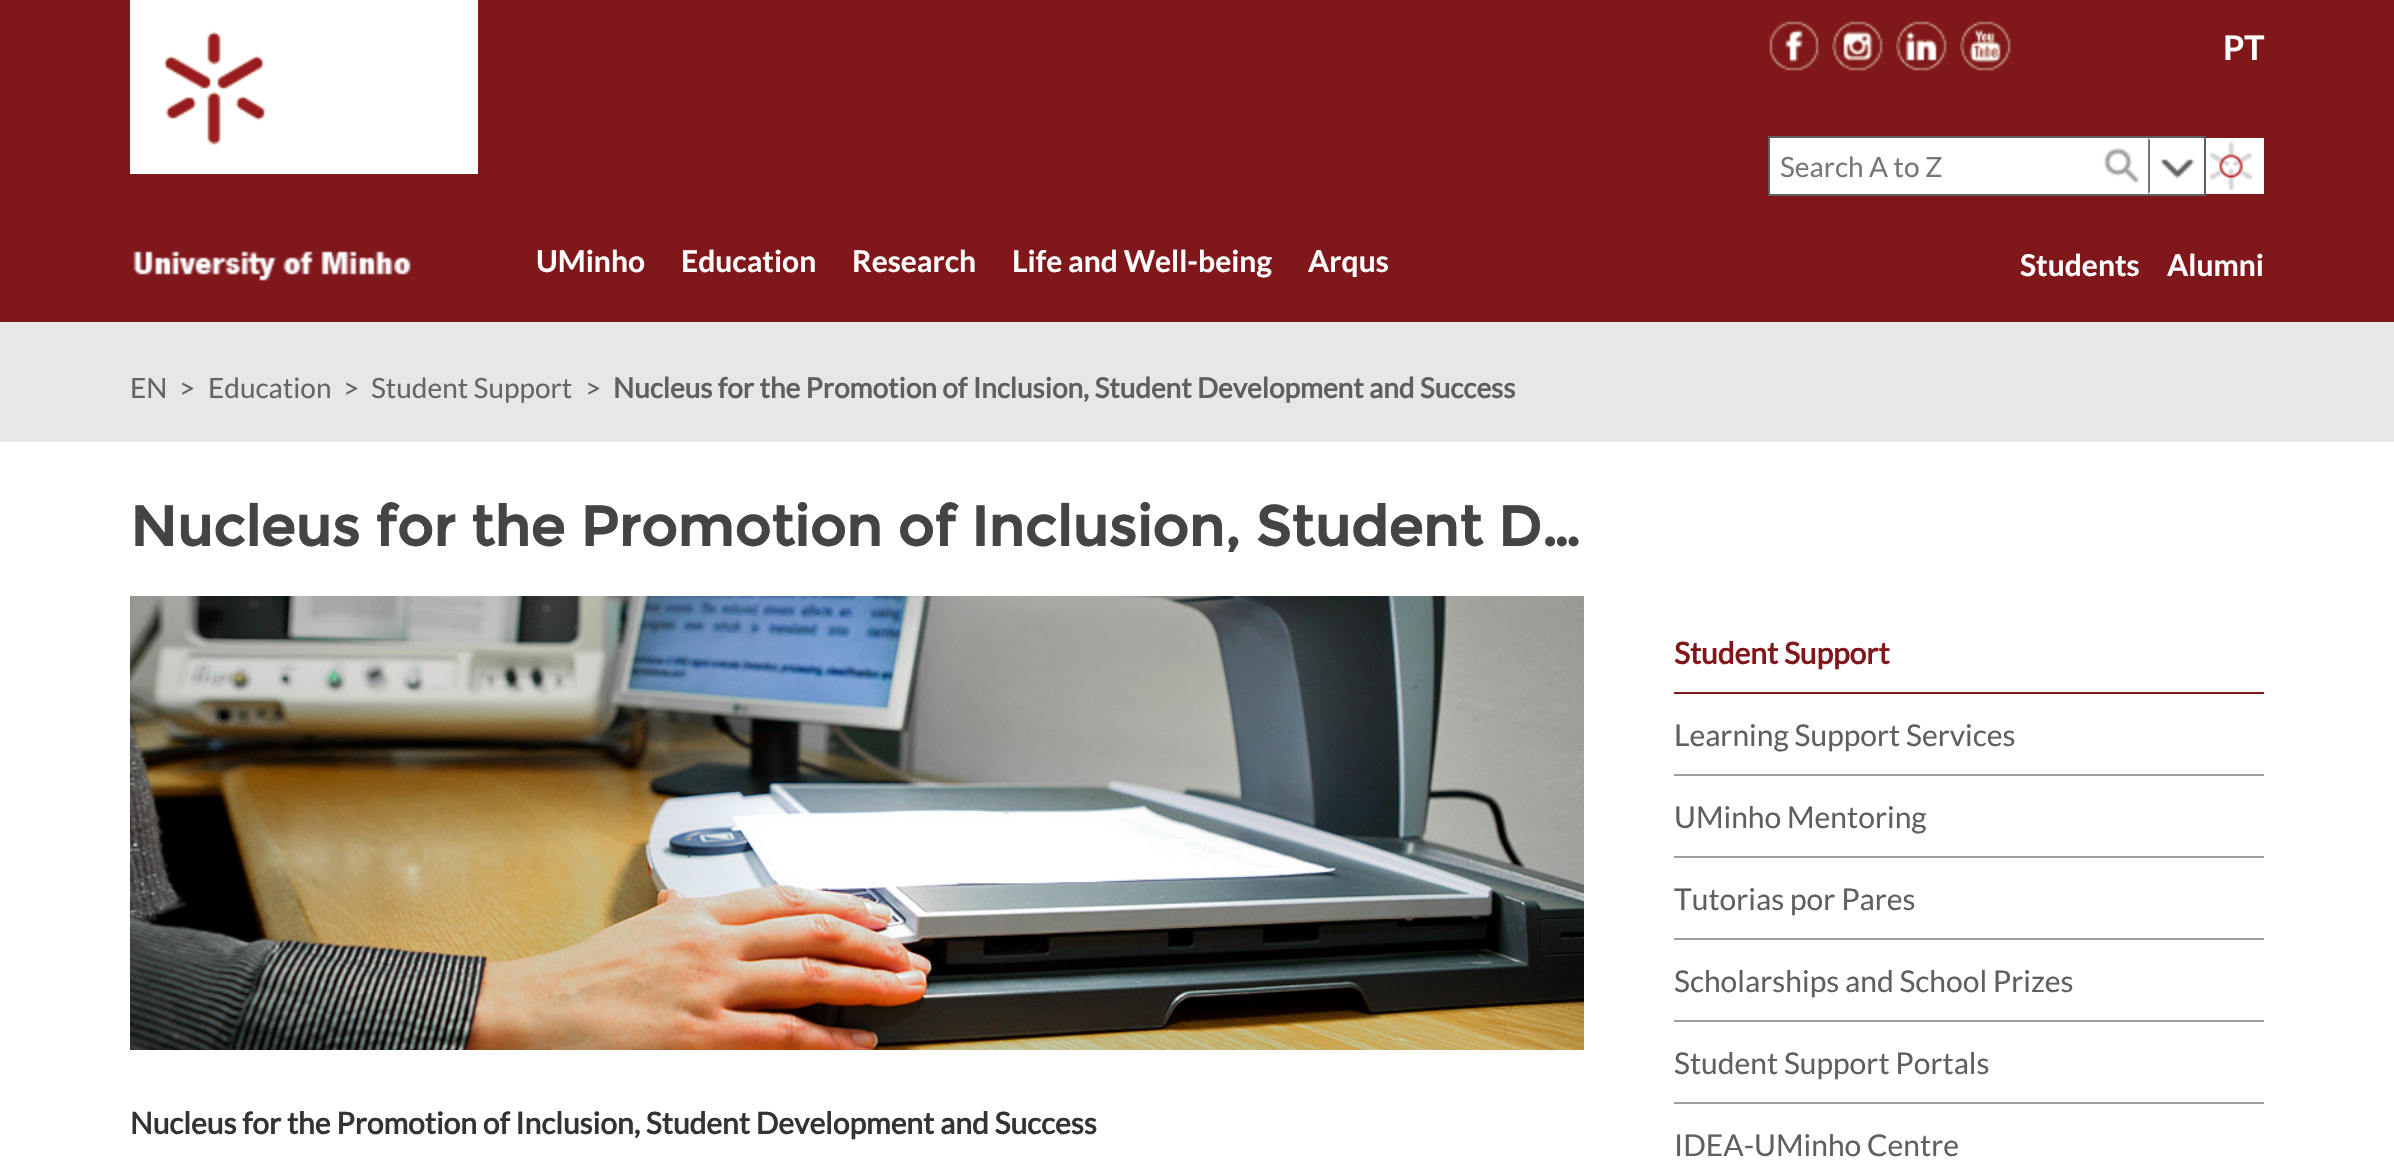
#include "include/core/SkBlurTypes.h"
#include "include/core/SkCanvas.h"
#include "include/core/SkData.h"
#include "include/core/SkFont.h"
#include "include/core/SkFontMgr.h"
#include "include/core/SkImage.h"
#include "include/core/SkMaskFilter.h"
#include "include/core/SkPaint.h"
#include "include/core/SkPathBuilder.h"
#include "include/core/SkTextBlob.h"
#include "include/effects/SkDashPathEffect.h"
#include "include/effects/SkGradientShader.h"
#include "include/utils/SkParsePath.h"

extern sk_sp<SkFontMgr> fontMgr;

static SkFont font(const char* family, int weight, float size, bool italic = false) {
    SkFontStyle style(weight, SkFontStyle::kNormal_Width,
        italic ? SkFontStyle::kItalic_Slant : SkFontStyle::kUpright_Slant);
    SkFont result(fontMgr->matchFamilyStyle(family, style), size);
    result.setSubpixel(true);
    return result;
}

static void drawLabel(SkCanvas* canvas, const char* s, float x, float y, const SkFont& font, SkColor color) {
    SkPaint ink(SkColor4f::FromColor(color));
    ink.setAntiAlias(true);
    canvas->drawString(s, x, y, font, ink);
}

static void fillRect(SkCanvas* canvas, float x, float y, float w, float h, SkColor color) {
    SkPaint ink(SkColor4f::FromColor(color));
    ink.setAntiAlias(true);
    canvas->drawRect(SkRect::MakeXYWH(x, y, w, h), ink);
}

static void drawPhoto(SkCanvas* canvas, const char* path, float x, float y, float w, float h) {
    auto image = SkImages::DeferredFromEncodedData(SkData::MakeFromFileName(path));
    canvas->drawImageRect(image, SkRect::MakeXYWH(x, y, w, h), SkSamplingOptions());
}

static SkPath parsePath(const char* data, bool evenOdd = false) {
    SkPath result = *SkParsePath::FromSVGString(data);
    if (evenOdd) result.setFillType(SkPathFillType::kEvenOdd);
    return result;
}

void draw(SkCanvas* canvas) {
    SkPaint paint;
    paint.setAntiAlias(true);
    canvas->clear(0xFFFFFFFF);
    fillRect(canvas, 0, 0, 2394, 322, 0xFF80171B);
    drawPhoto(canvas, "assets/img1.png", 130, 0, 348, 174);
    drawPhoto(canvas, "assets/img2.png", 133, 251, 278, 30);
    SkFont font1 = font("Lato", 700, 30);
    drawLabel(canvas, "UMinho", 536, 272, font1, 0xFFFFFFFF);
    drawLabel(canvas, "Education", 681, 272, font1, 0xFFFFFFFF);
    drawLabel(canvas, "Research", 852, 272, font1, 0xFFFFFFFF);
    drawLabel(canvas, "Life and Well-being", 1012, 272, font1, 0xFFFFFFFF);
    drawLabel(canvas, "Arqus", 1308, 272, font1, 0xFFFFFFFF);
    drawPhoto(canvas, "assets/img3.png", 1769, 21, 50, 50);
    drawPhoto(canvas, "assets/img4.png", 1832, 21, 51, 50);
    drawPhoto(canvas, "assets/img5.png", 1896, 21, 51, 50);
    drawPhoto(canvas, "assets/img6.png", 1960, 21, 51, 50);
    SkFont font2 = font("Lato", 700, 34);
    drawLabel(canvas, "PT", 2223, 60, font2, 0xFFFFFFFF);
    paint.setColor(0xFFFFFFFF);
    canvas->drawRect(SkRect::MakeXYWH(1769, 137, 436, 58), paint);
    paint.setStroke(true);
    paint.setStrokeWidth(2);
    paint.setColor(0xFF5E5F5F);
    canvas->drawRect(SkRect::MakeXYWH(1769, 137, 436, 58), paint);
    SkFont font3 = font("Lato", 400, 28);
    drawLabel(canvas, "Search A to Z", 1780, 177, font3, 0xFF777777);
    drawPhoto(canvas, "assets/img7.png", 2103, 147, 36, 36);
    drawPhoto(canvas, "assets/img8.png", 2161, 159, 34, 20);
    paint.setStroke(false);
    paint.setColor(0xFF777575);
    canvas->drawPath(parsePath("M2148 194V138L2150 140V192Z"), paint);
    fillRect(canvas, 2206, 138, 58, 56, 0xFFFFFFFF);
    drawPhoto(canvas, "assets/img9.png", 2210, 142, 42, 48);
    drawLabel(canvas, "Students", 2020, 276, font1, 0xFFFFFFFF);
    drawLabel(canvas, "Alumni", 2167, 276, font1, 0xFFFFFFFF);
    fillRect(canvas, 0, 322, 2394, 120, 0xFFE8E7E7);
    drawLabel(canvas, "EN", 130, 398, font3, 0xFF656565);
    drawLabel(canvas, ">", 179, 398, font3, 0xFF656565);
    drawLabel(canvas, "Education", 208, 398, font3, 0xFF656565);
    drawLabel(canvas, ">", 343, 398, font3, 0xFF656565);
    drawLabel(canvas, "Student Support", 371, 398, font3, 0xFF656565);
    drawLabel(canvas, ">", 585, 398, font3, 0xFF656565);
    SkFont font4 = font("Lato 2", 700, 28);
    drawLabel(canvas, "Nucleus for the Promotion of Inclusion, Student Development and Success", 613, 398, font4, 0xFF5E5F5F);
    SkFont font5 = font("Montserrat", 700, 56);
    drawLabel(canvas, "Nucleus for the Promotion of Inclusion, Student D…", 130, 546, font5, 0xFF444444);
    drawPhoto(canvas, "assets/img10.png", 130, 596, 1454, 454);
    SkFont font6 = font("Lato 2", 700, 30);
    drawLabel(canvas, "Nucleus for the Promotion of Inclusion, Student Development and Success", 130, 1134, font6, 0xFF333333);
    fillRect(canvas, 1674, 692, 590, 2, 0xFF80171B);
    drawLabel(canvas, "Student Support", 1674, 664, font6, 0xFF80171B);
    fillRect(canvas, 1674, 774, 590, 2, 0xFFA09D9D);
    SkFont font7 = font("Lato", 400, 30);
    drawLabel(canvas, "Learning Support Services", 1674, 746, font7, 0xFF5E5F5F);
    fillRect(canvas, 1674, 856, 590, 2, 0xFFA09D9D);
    drawLabel(canvas, "UMinho Mentoring", 1674, 828, font7, 0xFF5E5F5F);
    fillRect(canvas, 1674, 938, 590, 2, 0xFFA09D9D);
    drawLabel(canvas, "Tutorias por Pares", 1674, 910, font7, 0xFF5E5F5F);
    fillRect(canvas, 1674, 1020, 590, 2, 0xFFA09D9D);
    drawLabel(canvas, "Scholarships and School Prizes", 1674, 992, font7, 0xFF5E5F5F);
    fillRect(canvas, 1674, 1102, 590, 2, 0xFFA09D9D);
    drawLabel(canvas, "Student Support Portals", 1674, 1074, font7, 0xFF5E5F5F);
    drawLabel(canvas, "IDEA-UMinho Centre", 1674, 1156, font7, 0xFF5E5F5F);
}
